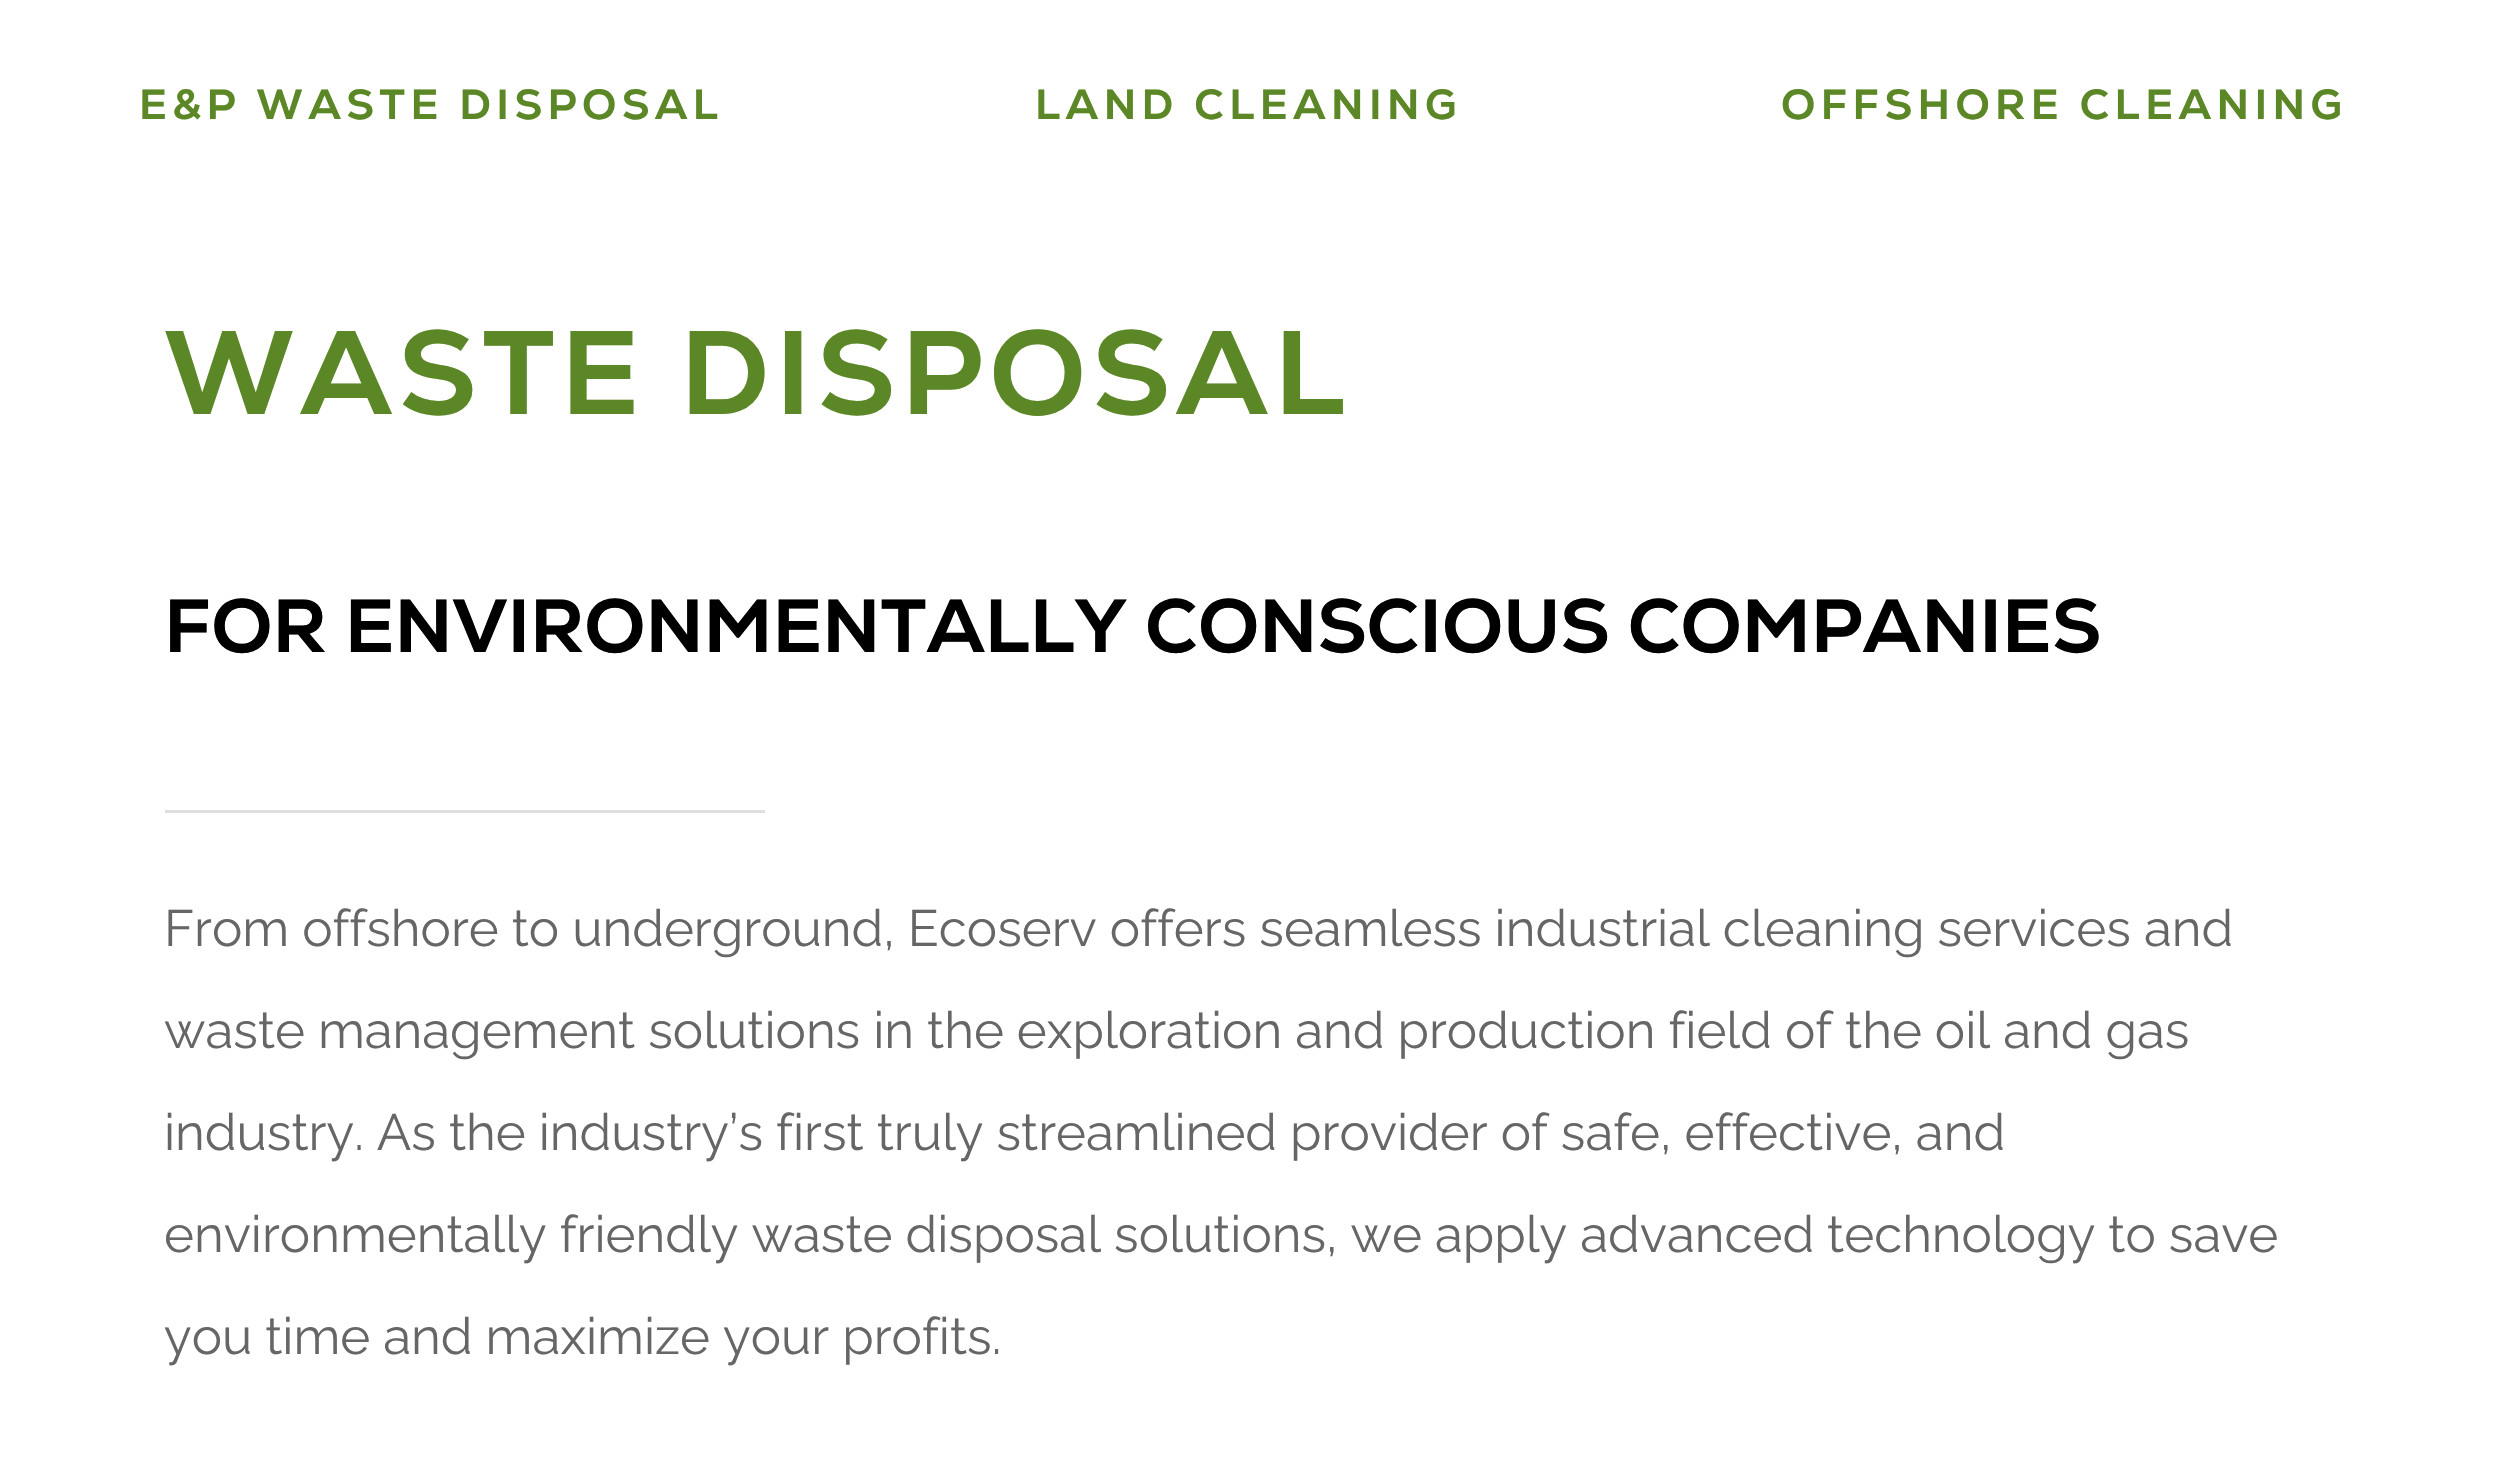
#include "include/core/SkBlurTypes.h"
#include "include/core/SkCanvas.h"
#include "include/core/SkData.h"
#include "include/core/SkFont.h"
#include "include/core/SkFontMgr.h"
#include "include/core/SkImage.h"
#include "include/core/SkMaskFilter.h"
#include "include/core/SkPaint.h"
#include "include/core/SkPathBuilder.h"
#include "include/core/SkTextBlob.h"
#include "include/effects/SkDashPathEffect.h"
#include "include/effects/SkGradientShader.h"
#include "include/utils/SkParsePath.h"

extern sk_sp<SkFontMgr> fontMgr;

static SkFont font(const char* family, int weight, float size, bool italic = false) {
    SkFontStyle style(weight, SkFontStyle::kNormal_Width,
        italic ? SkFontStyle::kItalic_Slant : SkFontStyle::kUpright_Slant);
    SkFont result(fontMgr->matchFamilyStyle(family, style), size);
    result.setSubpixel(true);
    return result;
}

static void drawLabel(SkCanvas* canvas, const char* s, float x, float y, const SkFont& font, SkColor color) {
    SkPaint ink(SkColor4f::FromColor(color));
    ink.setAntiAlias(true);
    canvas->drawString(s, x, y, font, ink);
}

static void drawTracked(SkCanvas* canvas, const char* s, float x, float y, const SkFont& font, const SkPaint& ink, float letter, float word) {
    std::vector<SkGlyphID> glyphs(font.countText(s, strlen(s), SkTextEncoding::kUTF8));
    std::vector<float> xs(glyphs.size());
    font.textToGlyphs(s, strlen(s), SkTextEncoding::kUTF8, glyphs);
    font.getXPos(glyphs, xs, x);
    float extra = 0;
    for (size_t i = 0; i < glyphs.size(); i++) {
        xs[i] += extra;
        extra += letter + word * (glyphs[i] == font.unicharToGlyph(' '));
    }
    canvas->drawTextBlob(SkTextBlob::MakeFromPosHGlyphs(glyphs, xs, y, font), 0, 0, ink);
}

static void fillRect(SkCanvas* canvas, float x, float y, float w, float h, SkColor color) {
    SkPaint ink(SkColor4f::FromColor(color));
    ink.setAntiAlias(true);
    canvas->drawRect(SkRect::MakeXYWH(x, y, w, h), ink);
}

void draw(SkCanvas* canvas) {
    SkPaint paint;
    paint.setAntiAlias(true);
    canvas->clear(0xFFFFFFFF);
    SkFont font1 = font("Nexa", 800, 42);
    paint.setColor(0xFF5C8727);
    drawTracked(canvas, "E&P WASTE DISPOSAL", 139, 119, font1, paint, 5.4f, 0);
    drawTracked(canvas, "LAND CLEANING", 1035, 119, font1, paint, 5.4f, 0);
    drawTracked(canvas, "OFFSHORE CLEANING", 1781, 119, font1, paint, 5.4f, 0);
    SkFont font2 = font("Nexa", 800, 118.4f);
    drawTracked(canvas, "WASTE DISPOSAL", 164, 414, font2, paint, 6, 0);
    SkFont font3 = font("Nexa", 800, 75);
    drawLabel(canvas, "FOR ENVIRONMENTALLY CONSCIOUS COMPANIES", 164, 652, font3, 0xFF000000);
    fillRect(canvas, 165, 810, 600, 3, 0xFFE0DEDE);
    SkFont font4 = font("Raleway", 400, 51);
    drawLabel(canvas, "From offshore to underground, Ecoserv offers seamless industrial cleaning services and", 164, 946, font4, 0xFF666666);
    drawLabel(canvas, "waste management solutions in the exploration and production field of the oil and gas", 164, 1048, font4, 0xFF666666);
    drawLabel(canvas, "industry. As the industry’s first truly streamlined provider of safe, effective, and", 164, 1150, font4, 0xFF666666);
    drawLabel(canvas, "environmentally friendly waste disposal solutions, we apply advanced technology to save", 164, 1252, font4, 0xFF666666);
    drawLabel(canvas, "you time and maximize your profits.", 164, 1354, font4, 0xFF666666);
}
